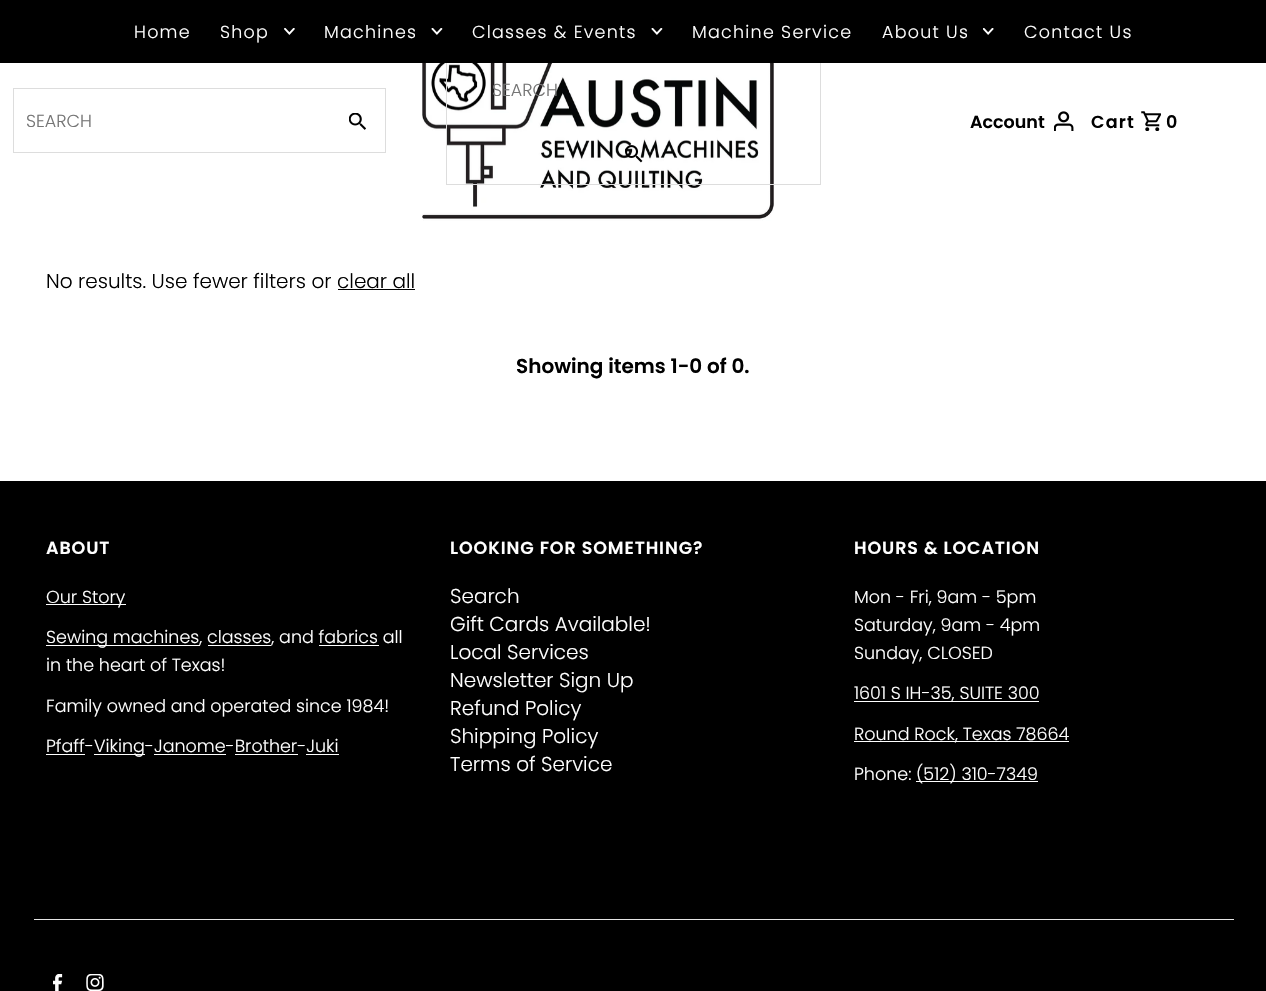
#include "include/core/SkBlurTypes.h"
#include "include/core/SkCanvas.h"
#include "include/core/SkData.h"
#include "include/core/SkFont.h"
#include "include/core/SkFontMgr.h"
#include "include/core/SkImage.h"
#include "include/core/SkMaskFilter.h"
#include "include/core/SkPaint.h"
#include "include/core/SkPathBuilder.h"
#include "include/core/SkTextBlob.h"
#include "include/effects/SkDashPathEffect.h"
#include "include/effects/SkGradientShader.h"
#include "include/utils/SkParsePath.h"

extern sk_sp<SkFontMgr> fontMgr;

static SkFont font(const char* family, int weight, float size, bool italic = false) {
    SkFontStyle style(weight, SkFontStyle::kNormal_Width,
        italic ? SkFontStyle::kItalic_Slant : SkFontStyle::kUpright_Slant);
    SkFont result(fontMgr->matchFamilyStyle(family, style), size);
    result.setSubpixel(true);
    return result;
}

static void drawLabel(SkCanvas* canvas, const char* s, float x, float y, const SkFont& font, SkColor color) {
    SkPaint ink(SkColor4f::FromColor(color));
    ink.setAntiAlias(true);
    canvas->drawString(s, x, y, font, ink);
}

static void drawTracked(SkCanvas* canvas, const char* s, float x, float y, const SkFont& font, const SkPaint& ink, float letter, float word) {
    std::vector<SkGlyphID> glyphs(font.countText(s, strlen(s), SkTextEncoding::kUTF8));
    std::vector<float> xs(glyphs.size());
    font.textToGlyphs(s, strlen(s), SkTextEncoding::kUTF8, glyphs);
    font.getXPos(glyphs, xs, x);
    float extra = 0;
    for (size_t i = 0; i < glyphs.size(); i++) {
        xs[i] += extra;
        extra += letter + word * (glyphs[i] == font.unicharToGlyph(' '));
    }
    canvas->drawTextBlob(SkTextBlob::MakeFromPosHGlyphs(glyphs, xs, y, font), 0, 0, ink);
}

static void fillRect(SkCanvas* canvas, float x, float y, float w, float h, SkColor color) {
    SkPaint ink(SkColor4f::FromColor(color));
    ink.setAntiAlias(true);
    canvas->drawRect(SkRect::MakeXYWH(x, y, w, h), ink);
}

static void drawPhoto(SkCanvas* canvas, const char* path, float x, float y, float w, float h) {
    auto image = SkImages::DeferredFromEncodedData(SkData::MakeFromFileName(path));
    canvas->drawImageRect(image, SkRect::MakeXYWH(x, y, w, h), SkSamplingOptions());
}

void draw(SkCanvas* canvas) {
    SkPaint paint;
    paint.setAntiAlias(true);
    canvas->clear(0xFFFFFFFF);
    drawPhoto(canvas, "assets/img5.png", 422, 63, 352, 158);
    paint.setStroke(true);
    paint.setStrokeWidth(1);
    paint.setColor(0xFFDDDDDD);
    canvas->drawRect(SkRect::MakeXYWH(446.5f, 58.5f, 374, 126), paint);
    fillRect(canvas, 0, 0, 1266, 63, 0xFF000000);
    SkFont font1 = font("Poppins", 300, 17.5f);
    paint.setStroke(false);
    paint.setColor(0xFFFFFFFF);
    drawTracked(canvas, "Home", 134, 38, font1, paint, 1.25f, 0);
    drawTracked(canvas, "Shop", 220, 38, font1, paint, 1.25f, 0);
    drawPhoto(canvas, "assets/img1.png", 284, 28, 11, 7);
    drawTracked(canvas, "Machines", 324, 38, font1, paint, 1.25f, 0);
    drawPhoto(canvas, "assets/img2.png", 431, 28, 12, 7);
    drawTracked(canvas, "Classes & Events", 472, 38, font1, paint, 1.25f, 0);
    drawPhoto(canvas, "assets/img2.png", 651, 28, 12, 7);
    drawTracked(canvas, "Machine Service", 692, 38, font1, paint, 1.25f, 0);
    drawTracked(canvas, "About Us", 882, 38, font1, paint, 1.25f, 0);
    drawPhoto(canvas, "assets/img3.png", 983, 28, 11, 7);
    drawTracked(canvas, "Contact Us", 1024, 38, font1, paint, 1.25f, 0);
    paint.setStroke(true);
    paint.setColor(0xFFDDDDDD);
    canvas->drawRect(SkRect::MakeXYWH(13.5f, 88.5f, 372, 64), paint);
    drawLabel(canvas, "SEARCH", 26, 127, font1, 0xFF757575);
    drawPhoto(canvas, "assets/img4.png", 349, 113, 17, 17);
    SkFont font2 = font("Poppins", 600, 17.5f);
    drawLabel(canvas, "Account", 970, 128, font2, 0xFF000000);
    drawPhoto(canvas, "assets/img6.png", 1054, 111, 20, 20);
    paint.setStroke(false);
    paint.setColor(0xFF000000);
    drawTracked(canvas, "Cart", 1091, 128, font2, paint, 1.25f, 0);
    drawPhoto(canvas, "assets/img7.png", 1141, 111, 20, 20);
    drawTracked(canvas, "0", 1166, 128, font2, paint, 1.25f, 0);
    drawLabel(canvas, "SEARCH", 492, 96, font1, 0xFF757575);
    drawPhoto(canvas, "assets/img8.png", 625, 145, 18, 18);
    SkFont font3 = font("Poppins", 300, 20);
    drawLabel(canvas, "No results. Use fewer filters or clear all", 46, 288, font3, 0xFF000000);
    fillRect(canvas, 338, 289, 77, 1, 0xFF000000);
    SkFont font4 = font("Poppins", 600, 20);
    drawLabel(canvas, "Showing items 1-0 of 0.", 516, 373, font4, 0xFF000000);
    fillRect(canvas, 0, 481, 1266, 510, 0xFF000000);
    paint.setColor(0xFFFFFFFF);
    drawTracked(canvas, "ABOUT", 46, 554, font2, paint, 0.9f, 0);
    fillRect(canvas, 46, 604, 80, 1, 0xFFFFFFFF);
    drawLabel(canvas, "Our Story", 46, 603, font1, 0xFFFFFFFF);
    fillRect(canvas, 46, 645, 154, 1, 0xFFFFFFFF);
    drawLabel(canvas, "Sewing machines, classes, and fabrics all", 46, 643, font1, 0xFFFFFFFF);
    fillRect(canvas, 208, 645, 63, 1, 0xFFFFFFFF);
    fillRect(canvas, 319, 645, 60, 1, 0xFFFFFFFF);
    drawLabel(canvas, "in the heart of Texas!", 46, 671, font1, 0xFFFFFFFF);
    drawLabel(canvas, "Family owned and operated since 1984!", 46, 712, font1, 0xFFFFFFFF);
    drawLabel(canvas, "Pfaff-", 46, 752, font1, 0xFFFFFFFF);
    fillRect(canvas, 46, 754, 39, 1, 0xFFFFFFFF);
    fillRect(canvas, 94, 754, 51, 1, 0xFFFFFFFF);
    drawLabel(canvas, "Viking-Janome-Brother-Juki", 94, 752, font1, 0xFFFFFFFF);
    fillRect(canvas, 154, 754, 72, 1, 0xFFFFFFFF);
    fillRect(canvas, 235, 754, 63, 1, 0xFFFFFFFF);
    fillRect(canvas, 306, 754, 33, 1, 0xFFFFFFFF);
    drawTracked(canvas, "LOOKING FOR SOMETHING?", 450, 554, font2, paint, 0.9f, 0);
    drawLabel(canvas, "Search", 450, 603, font3, 0xFFFFFFFF);
    drawLabel(canvas, "Gift Cards Available!", 450, 631, font3, 0xFFFFFFFF);
    drawLabel(canvas, "Local Services", 450, 659, font3, 0xFFFFFFFF);
    drawLabel(canvas, "Newsletter Sign Up", 450, 687, font3, 0xFFFFFFFF);
    drawLabel(canvas, "Refund Policy", 450, 715, font3, 0xFFFFFFFF);
    drawLabel(canvas, "Shipping Policy", 450, 743, font3, 0xFFFFFFFF);
    drawLabel(canvas, "Terms of Service", 450, 771, font3, 0xFFFFFFFF);
    drawTracked(canvas, "HOURS & LOCATION", 854, 554, font2, paint, 0.9f, 0);
    drawLabel(canvas, "Mon - Fri, 9am - 5pm", 854, 603, font1, 0xFFFFFFFF);
    drawLabel(canvas, "Saturday, 9am - 4pm", 854, 631, font1, 0xFFFFFFFF);
    drawLabel(canvas, "Sunday, CLOSED", 854, 659, font1, 0xFFFFFFFF);
    fillRect(canvas, 854, 701, 185, 1, 0xFFFFFFFF);
    drawLabel(canvas, "1601 S IH-35, SUITE 300", 854, 699, font1, 0xFFFFFFFF);
    fillRect(canvas, 854, 741, 215, 1, 0xFFFFFFFF);
    drawLabel(canvas, "Round Rock, Texas 78664", 854, 740, font1, 0xFFFFFFFF);
    drawLabel(canvas, "Phone:", 854, 780, font1, 0xFFFFFFFF);
    fillRect(canvas, 916, 781, 122, 1, 0xFFFFFFFF);
    drawLabel(canvas, "(512) 310-7349", 916, 780, font1, 0xFFFFFFFF);
    fillRect(canvas, 34, 919, 1200, 1, 0xFFE5E5E5);
    drawPhoto(canvas, "assets/img9.png", 53, 974, 10, 17);
    drawPhoto(canvas, "assets/img10.png", 86, 974, 18, 17);
}
